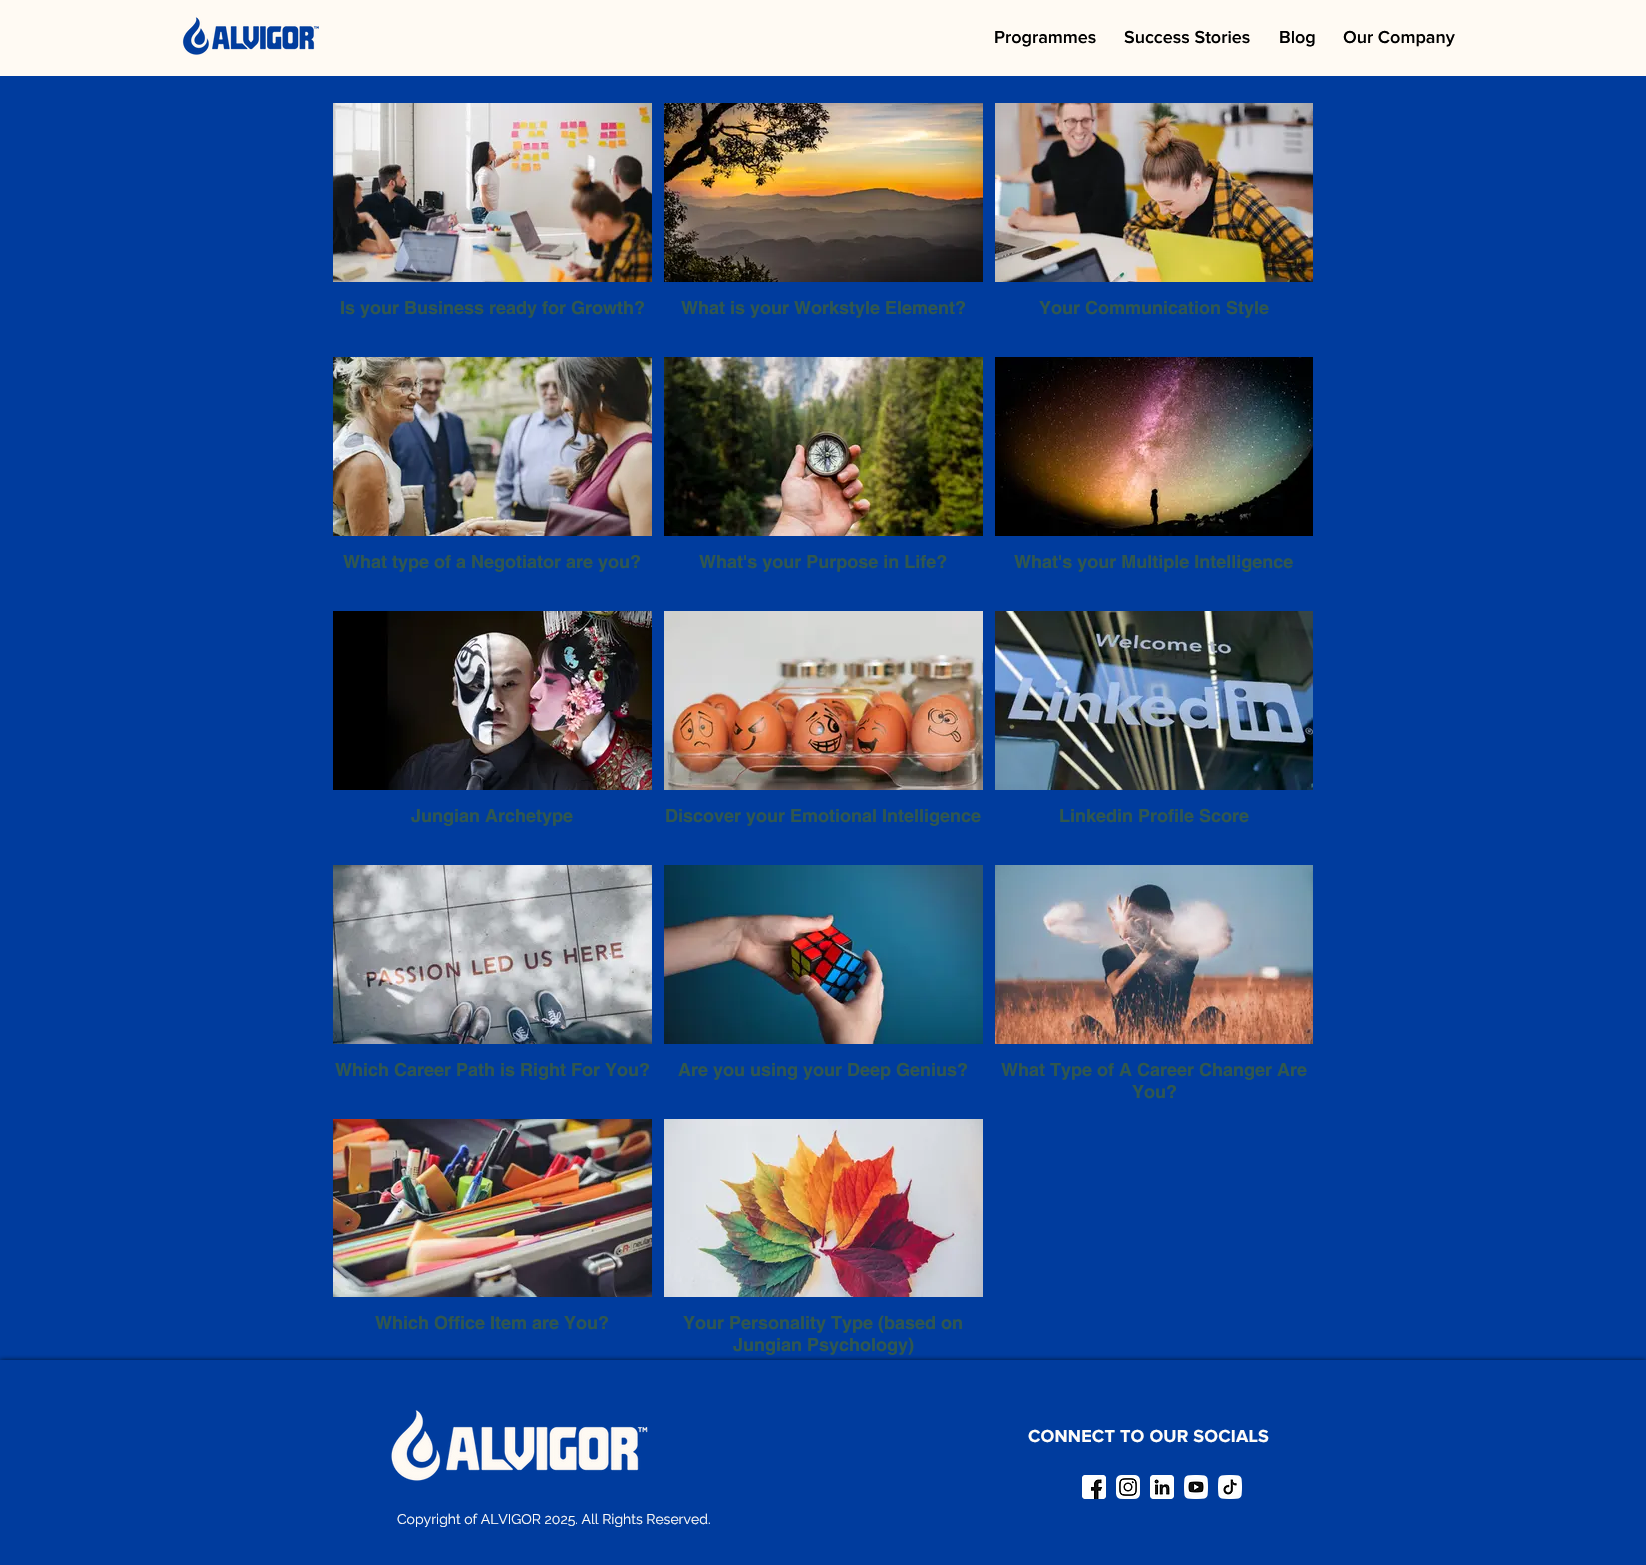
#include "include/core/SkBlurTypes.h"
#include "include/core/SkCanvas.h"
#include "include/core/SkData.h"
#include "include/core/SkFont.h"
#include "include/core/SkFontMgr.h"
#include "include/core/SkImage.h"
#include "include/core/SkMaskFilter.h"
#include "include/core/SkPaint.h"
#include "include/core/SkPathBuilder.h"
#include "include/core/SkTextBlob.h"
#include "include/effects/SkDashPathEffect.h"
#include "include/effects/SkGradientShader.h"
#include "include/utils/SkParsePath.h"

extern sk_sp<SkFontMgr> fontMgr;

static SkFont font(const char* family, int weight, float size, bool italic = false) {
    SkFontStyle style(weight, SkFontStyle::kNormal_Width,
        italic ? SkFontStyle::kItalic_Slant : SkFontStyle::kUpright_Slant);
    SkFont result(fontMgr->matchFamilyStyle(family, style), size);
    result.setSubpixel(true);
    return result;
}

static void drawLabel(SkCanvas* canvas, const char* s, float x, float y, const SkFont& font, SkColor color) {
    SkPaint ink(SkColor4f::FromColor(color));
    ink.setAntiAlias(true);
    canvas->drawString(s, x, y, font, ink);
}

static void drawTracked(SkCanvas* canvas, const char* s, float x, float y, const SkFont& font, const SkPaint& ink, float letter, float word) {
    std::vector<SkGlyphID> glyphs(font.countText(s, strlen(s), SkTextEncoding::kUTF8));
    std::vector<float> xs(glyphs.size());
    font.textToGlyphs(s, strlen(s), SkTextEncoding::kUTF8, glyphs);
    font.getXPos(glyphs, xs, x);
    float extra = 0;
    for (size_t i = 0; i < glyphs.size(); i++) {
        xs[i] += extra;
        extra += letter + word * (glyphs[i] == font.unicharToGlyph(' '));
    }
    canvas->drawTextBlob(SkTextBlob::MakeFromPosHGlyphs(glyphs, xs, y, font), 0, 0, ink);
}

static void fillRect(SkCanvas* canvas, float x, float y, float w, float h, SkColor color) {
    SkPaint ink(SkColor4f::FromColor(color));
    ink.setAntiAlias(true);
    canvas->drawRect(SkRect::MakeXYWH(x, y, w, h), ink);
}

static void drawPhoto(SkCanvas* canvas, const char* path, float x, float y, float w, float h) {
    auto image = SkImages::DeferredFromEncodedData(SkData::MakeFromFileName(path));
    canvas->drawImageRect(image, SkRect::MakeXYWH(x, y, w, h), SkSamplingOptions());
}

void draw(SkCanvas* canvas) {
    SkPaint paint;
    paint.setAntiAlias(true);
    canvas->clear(0xFF003C9E);
    fillRect(canvas, 0, 0, 1646, 76, 0xFFFFFAF3);
    drawPhoto(canvas, "assets/img1.png", 182, 17, 137, 38);
    SkFont font1 = font("Proxima Nova", 600, 18);
    drawLabel(canvas, "Programmes", 994, 43, font1, 0xFF000000);
    drawLabel(canvas, "Success Stories", 1124, 43, font1, 0xFF000000);
    drawLabel(canvas, "Blog", 1279, 43, font1, 0xFF000000);
    drawLabel(canvas, "Our Company", 1343, 43, font1, 0xFF000000);
    drawPhoto(canvas, "assets/img2.png", 333, 103, 319, 179);
    SkFont font2 = font("helvetica", 700, 18);
    drawLabel(canvas, "Is your Business ready for Growth?", 340, 314, font2, 0xFF30574E);
    drawPhoto(canvas, "assets/img3.png", 664, 103, 319, 179);
    drawLabel(canvas, "What is your Workstyle Element?", 681, 314, font2, 0xFF30574E);
    drawPhoto(canvas, "assets/img4.png", 995, 103, 318, 179);
    drawLabel(canvas, "Your Communication Style", 1039, 314, font2, 0xFF30574E);
    drawPhoto(canvas, "assets/img5.png", 333, 357, 319, 179);
    drawLabel(canvas, "What type of a Negotiator are you?", 343, 568, font2, 0xFF30574E);
    drawPhoto(canvas, "assets/img6.png", 664, 357, 319, 179);
    drawLabel(canvas, "What's your Purpose in Life?", 699, 568, font2, 0xFF30574E);
    drawPhoto(canvas, "assets/img7.png", 995, 357, 318, 179);
    drawLabel(canvas, "What's your Multiple Intelligence", 1014, 568, font2, 0xFF30574E);
    drawPhoto(canvas, "assets/img8.png", 333, 611, 319, 179);
    drawLabel(canvas, "Jungian Archetype", 411, 822, font2, 0xFF30574E);
    drawPhoto(canvas, "assets/img9.png", 664, 611, 319, 179);
    drawLabel(canvas, "Discover your Emotional Intelligence", 665, 822, font2, 0xFF30574E);
    drawPhoto(canvas, "assets/img10.png", 995, 611, 318, 179);
    drawLabel(canvas, "Linkedin Profile Score", 1059, 822, font2, 0xFF30574E);
    drawPhoto(canvas, "assets/img11.png", 333, 865, 319, 179);
    drawLabel(canvas, "Which Career Path is Right For You?", 335, 1076, font2, 0xFF30574E);
    drawPhoto(canvas, "assets/img12.png", 664, 865, 319, 179);
    drawLabel(canvas, "Are you using your Deep Genius?", 678, 1076, font2, 0xFF30574E);
    drawPhoto(canvas, "assets/img13.png", 995, 865, 318, 179);
    drawLabel(canvas, "What Type of A Career Changer Are", 1001, 1076, font2, 0xFF30574E);
    drawLabel(canvas, "You?", 1132, 1098, font2, 0xFF30574E);
    drawPhoto(canvas, "assets/img14.png", 333, 1119, 319, 178);
    drawLabel(canvas, "Which Office Item are You?", 375, 1329, font2, 0xFF30574E);
    drawPhoto(canvas, "assets/img15.png", 664, 1119, 319, 178);
    drawLabel(canvas, "Your Personality Type (based on", 683, 1329, font2, 0xFF30574E);
    drawLabel(canvas, "Jungian Psychology)", 733, 1351, font2, 0xFF30574E);
    canvas->save();
    canvas->clipRect(SkRect::MakeXYWH(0, 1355, 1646, 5));
    paint.setColor(0xB3000000);
    paint.setMaskFilter(SkMaskFilter::MakeBlur(kNormal_SkBlurStyle, 2.5f));
    canvas->drawRect(SkRect::MakeXYWH(0, 1360, 1646, 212), paint);
    paint.setMaskFilter(nullptr);
    canvas->restore();
    drawPhoto(canvas, "assets/img16.png", 391, 1410, 257, 71);
    SkFont font3 = font("Proxima Nova", 700, 18);
    paint.setColor(0xFFFFFCF8);
    drawTracked(canvas, "CONNECT TO OUR SOCIALS", 1028, 1442, font3, paint, 0.2f, 0);
    drawPhoto(canvas, "assets/img17.png", 1082, 1475, 24, 24);
    drawPhoto(canvas, "assets/img18.png", 1116, 1475, 24, 24);
    drawPhoto(canvas, "assets/img19.png", 1150, 1475, 24, 24);
    drawPhoto(canvas, "assets/img20.png", 1184, 1475, 24, 24);
    drawPhoto(canvas, "assets/img21.png", 1218, 1475, 24, 24);
    SkFont font4 = font("Raleway", 400, 14);
    drawLabel(canvas, "Copyright of ALVIGOR 2025. All Rights Reserved.", 397, 1524, font4, 0xFFFFFCF8);
}
